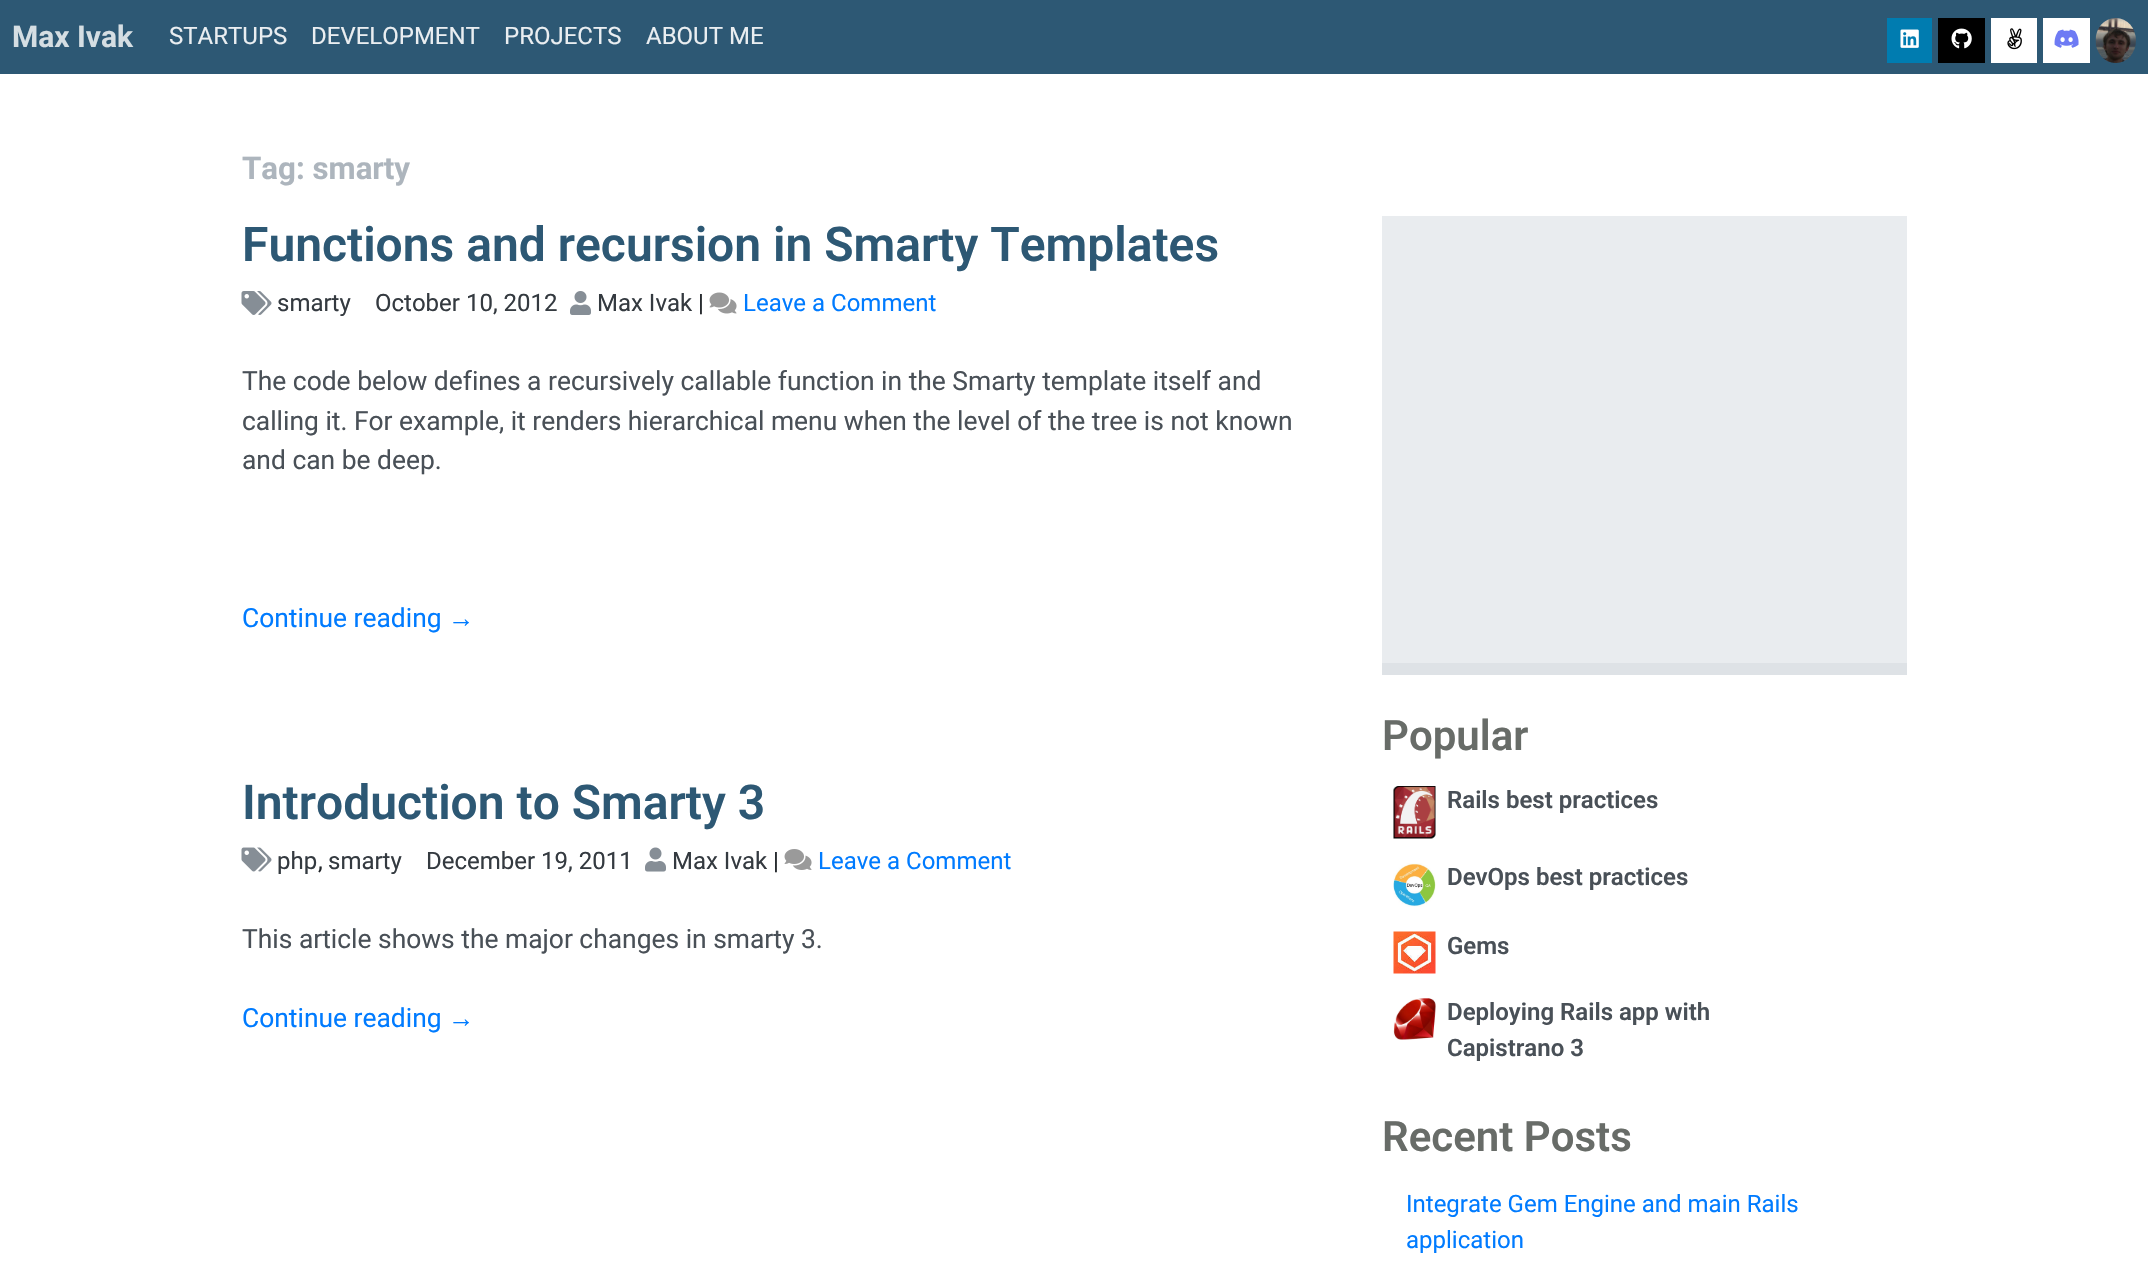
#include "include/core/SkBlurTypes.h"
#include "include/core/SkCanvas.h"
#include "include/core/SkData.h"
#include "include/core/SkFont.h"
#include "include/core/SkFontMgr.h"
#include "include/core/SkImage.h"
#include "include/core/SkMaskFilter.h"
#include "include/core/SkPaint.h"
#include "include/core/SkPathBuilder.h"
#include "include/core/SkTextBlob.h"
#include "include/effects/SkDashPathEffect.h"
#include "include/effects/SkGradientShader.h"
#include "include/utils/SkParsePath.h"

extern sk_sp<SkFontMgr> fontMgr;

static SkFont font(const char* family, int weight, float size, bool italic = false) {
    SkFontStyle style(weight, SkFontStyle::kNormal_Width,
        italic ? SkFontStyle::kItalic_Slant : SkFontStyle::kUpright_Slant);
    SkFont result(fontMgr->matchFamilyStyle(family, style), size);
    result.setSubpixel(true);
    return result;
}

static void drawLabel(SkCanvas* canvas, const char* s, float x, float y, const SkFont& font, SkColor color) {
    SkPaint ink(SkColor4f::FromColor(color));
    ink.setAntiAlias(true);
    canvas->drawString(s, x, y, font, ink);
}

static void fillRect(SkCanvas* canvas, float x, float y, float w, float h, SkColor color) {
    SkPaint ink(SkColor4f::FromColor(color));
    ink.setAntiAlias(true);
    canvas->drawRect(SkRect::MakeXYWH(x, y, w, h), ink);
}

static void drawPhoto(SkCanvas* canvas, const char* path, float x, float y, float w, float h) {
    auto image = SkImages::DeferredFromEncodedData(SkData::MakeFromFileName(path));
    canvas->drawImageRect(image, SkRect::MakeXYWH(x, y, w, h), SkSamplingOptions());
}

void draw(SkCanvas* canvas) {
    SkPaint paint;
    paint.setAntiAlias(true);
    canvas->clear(0xFFFFFFFF);
    fillRect(canvas, 0, 0, 2148, 74, 0xFF2D5874);
    SkFont font1 = font("Roboto", 700, 30);
    drawLabel(canvas, "Max Ivak", 12, 47, font1, 0xFFD5DEE3);
    SkFont font2 = font("Roboto", 400, 24);
    drawLabel(canvas, "STARTUPS", 169, 44, font2, 0xFFEAEEF1);
    drawLabel(canvas, "DEVELOPMENT", 311, 44, font2, 0xFFEAEEF1);
    drawLabel(canvas, "PROJECTS", 504, 44, font2, 0xFFEAEEF1);
    drawLabel(canvas, "ABOUT ME", 646, 44, font2, 0xFFEAEEF1);
    fillRect(canvas, 1887, 18, 45, 45, 0xFF007CB0);
    drawPhoto(canvas, "assets/img1.png", 1900, 29, 19, 19);
    fillRect(canvas, 1938, 18, 47, 45, 0xFF000000);
    drawPhoto(canvas, "assets/img2.png", 1951, 28, 21, 21);
    fillRect(canvas, 1991, 18, 46, 45, 0xFFFFFFFF);
    drawPhoto(canvas, "assets/img3.png", 2007, 28, 15, 22);
    fillRect(canvas, 2043, 18, 47, 45, 0xFFFFFFFF);
    drawPhoto(canvas, "assets/img4.png", 2054, 29, 25, 19);
    drawPhoto(canvas, "assets/img5.png", 2095, 18, 41, 45);
    SkFont font3 = font("Roboto", 700, 31.25f);
    drawLabel(canvas, "Tag: smarty", 242, 179, font3, 0xFFADB5BD);
    SkFont font4 = font("Roboto", 600, 48);
    drawLabel(canvas, "Functions and recursion in Smarty Templates", 242, 261, font4, 0xFF2D5874);
    drawPhoto(canvas, "assets/img6.png", 241, 291, 31, 24);
    drawLabel(canvas, "smarty", 277, 311, font2, 0xFF343A40);
    drawLabel(canvas, "October 10, 2012", 375, 311, font2, 0xFF343A40);
    drawPhoto(canvas, "assets/img7.png", 570, 291, 21, 24);
    drawLabel(canvas, "Max Ivak", 597, 311, font2, 0xFF343A40);
    drawLabel(canvas, "|", 698, 311, font2, 0xFF212529);
    drawPhoto(canvas, "assets/img8.png", 709, 292, 28, 22);
    drawLabel(canvas, "Leave a Comment", 743, 311, font2, 0xFF007BFF);
    SkFont font5 = font("Roboto", 400, 26.4f);
    drawLabel(canvas, "The code below defines a recursively callable function in the Smarty template itself and", 242, 390, font5, 0xFF495057);
    drawLabel(canvas, "calling it. For example, it renders hierarchical menu when the level of the tree is not known", 242, 430, font5, 0xFF495057);
    drawLabel(canvas, "and can be deep.", 242, 469, font5, 0xFF495057);
    drawLabel(canvas, "Continue reading", 242, 627, font5, 0xFF007BFF);
    SkFont font6 = font("Liberation Sans", 400, 26.4f);
    drawLabel(canvas, "→", 448, 627, font6, 0xFF007BFF);
    drawLabel(canvas, "Introduction to Smarty 3", 242, 819, font4, 0xFF2D5874);
    drawPhoto(canvas, "assets/img9.png", 241, 847, 31, 25);
    drawLabel(canvas, "php", 277, 869, font2, 0xFF343A40);
    drawLabel(canvas, ",", 318, 869, font2, 0xFF212529);
    drawLabel(canvas, "smarty", 328, 869, font2, 0xFF343A40);
    drawLabel(canvas, "December 19, 2011", 426, 869, font2, 0xFF343A40);
    drawPhoto(canvas, "assets/img10.png", 645, 847, 21, 25);
    drawLabel(canvas, "Max Ivak", 672, 869, font2, 0xFF343A40);
    drawLabel(canvas, "|", 773, 869, font2, 0xFF212529);
    drawPhoto(canvas, "assets/img11.png", 784, 849, 28, 21);
    drawLabel(canvas, "Leave a Comment", 818, 869, font2, 0xFF007BFF);
    drawLabel(canvas, "This article shows the major changes in smarty 3.", 242, 948, font5, 0xFF495057);
    drawLabel(canvas, "Continue reading", 242, 1027, font5, 0xFF007BFF);
    drawLabel(canvas, "→", 448, 1027, font6, 0xFF007BFF);
    fillRect(canvas, 1382, 216, 525, 447, 0xFFE9ECEF);
    fillRect(canvas, 1382, 663, 525, 12, 0xFFDEE2E6);
    SkFont font7 = font("Roboto", 600, 42);
    drawLabel(canvas, "Popular", 1382, 750, font7, 0xFF686C68);
    drawPhoto(canvas, "assets/img12.png", 1393, 786, 43, 53);
    SkFont font8 = font("Roboto", 600, 24);
    drawLabel(canvas, "Rails best practices", 1447, 808, font8, 0xFF495057);
    drawPhoto(canvas, "assets/img13.png", 1393, 863, 43, 44);
    drawLabel(canvas, "DevOps best practices", 1447, 885, font8, 0xFF495057);
    drawPhoto(canvas, "assets/img14.png", 1393, 931, 43, 43);
    drawLabel(canvas, "Gems", 1447, 954, font8, 0xFF495057);
    drawPhoto(canvas, "assets/img15.png", 1393, 998, 43, 42);
    drawLabel(canvas, "Deploying Rails app with", 1447, 1020, font8, 0xFF495057);
    drawLabel(canvas, "Capistrano 3", 1447, 1056, font8, 0xFF495057);
    drawLabel(canvas, "Recent Posts", 1382, 1151, font7, 0xFF686C68);
    drawLabel(canvas, "Integrate Gem Engine and main Rails", 1406, 1212, font2, 0xFF007BFF);
    drawLabel(canvas, "application", 1406, 1248, font2, 0xFF007BFF);
}
